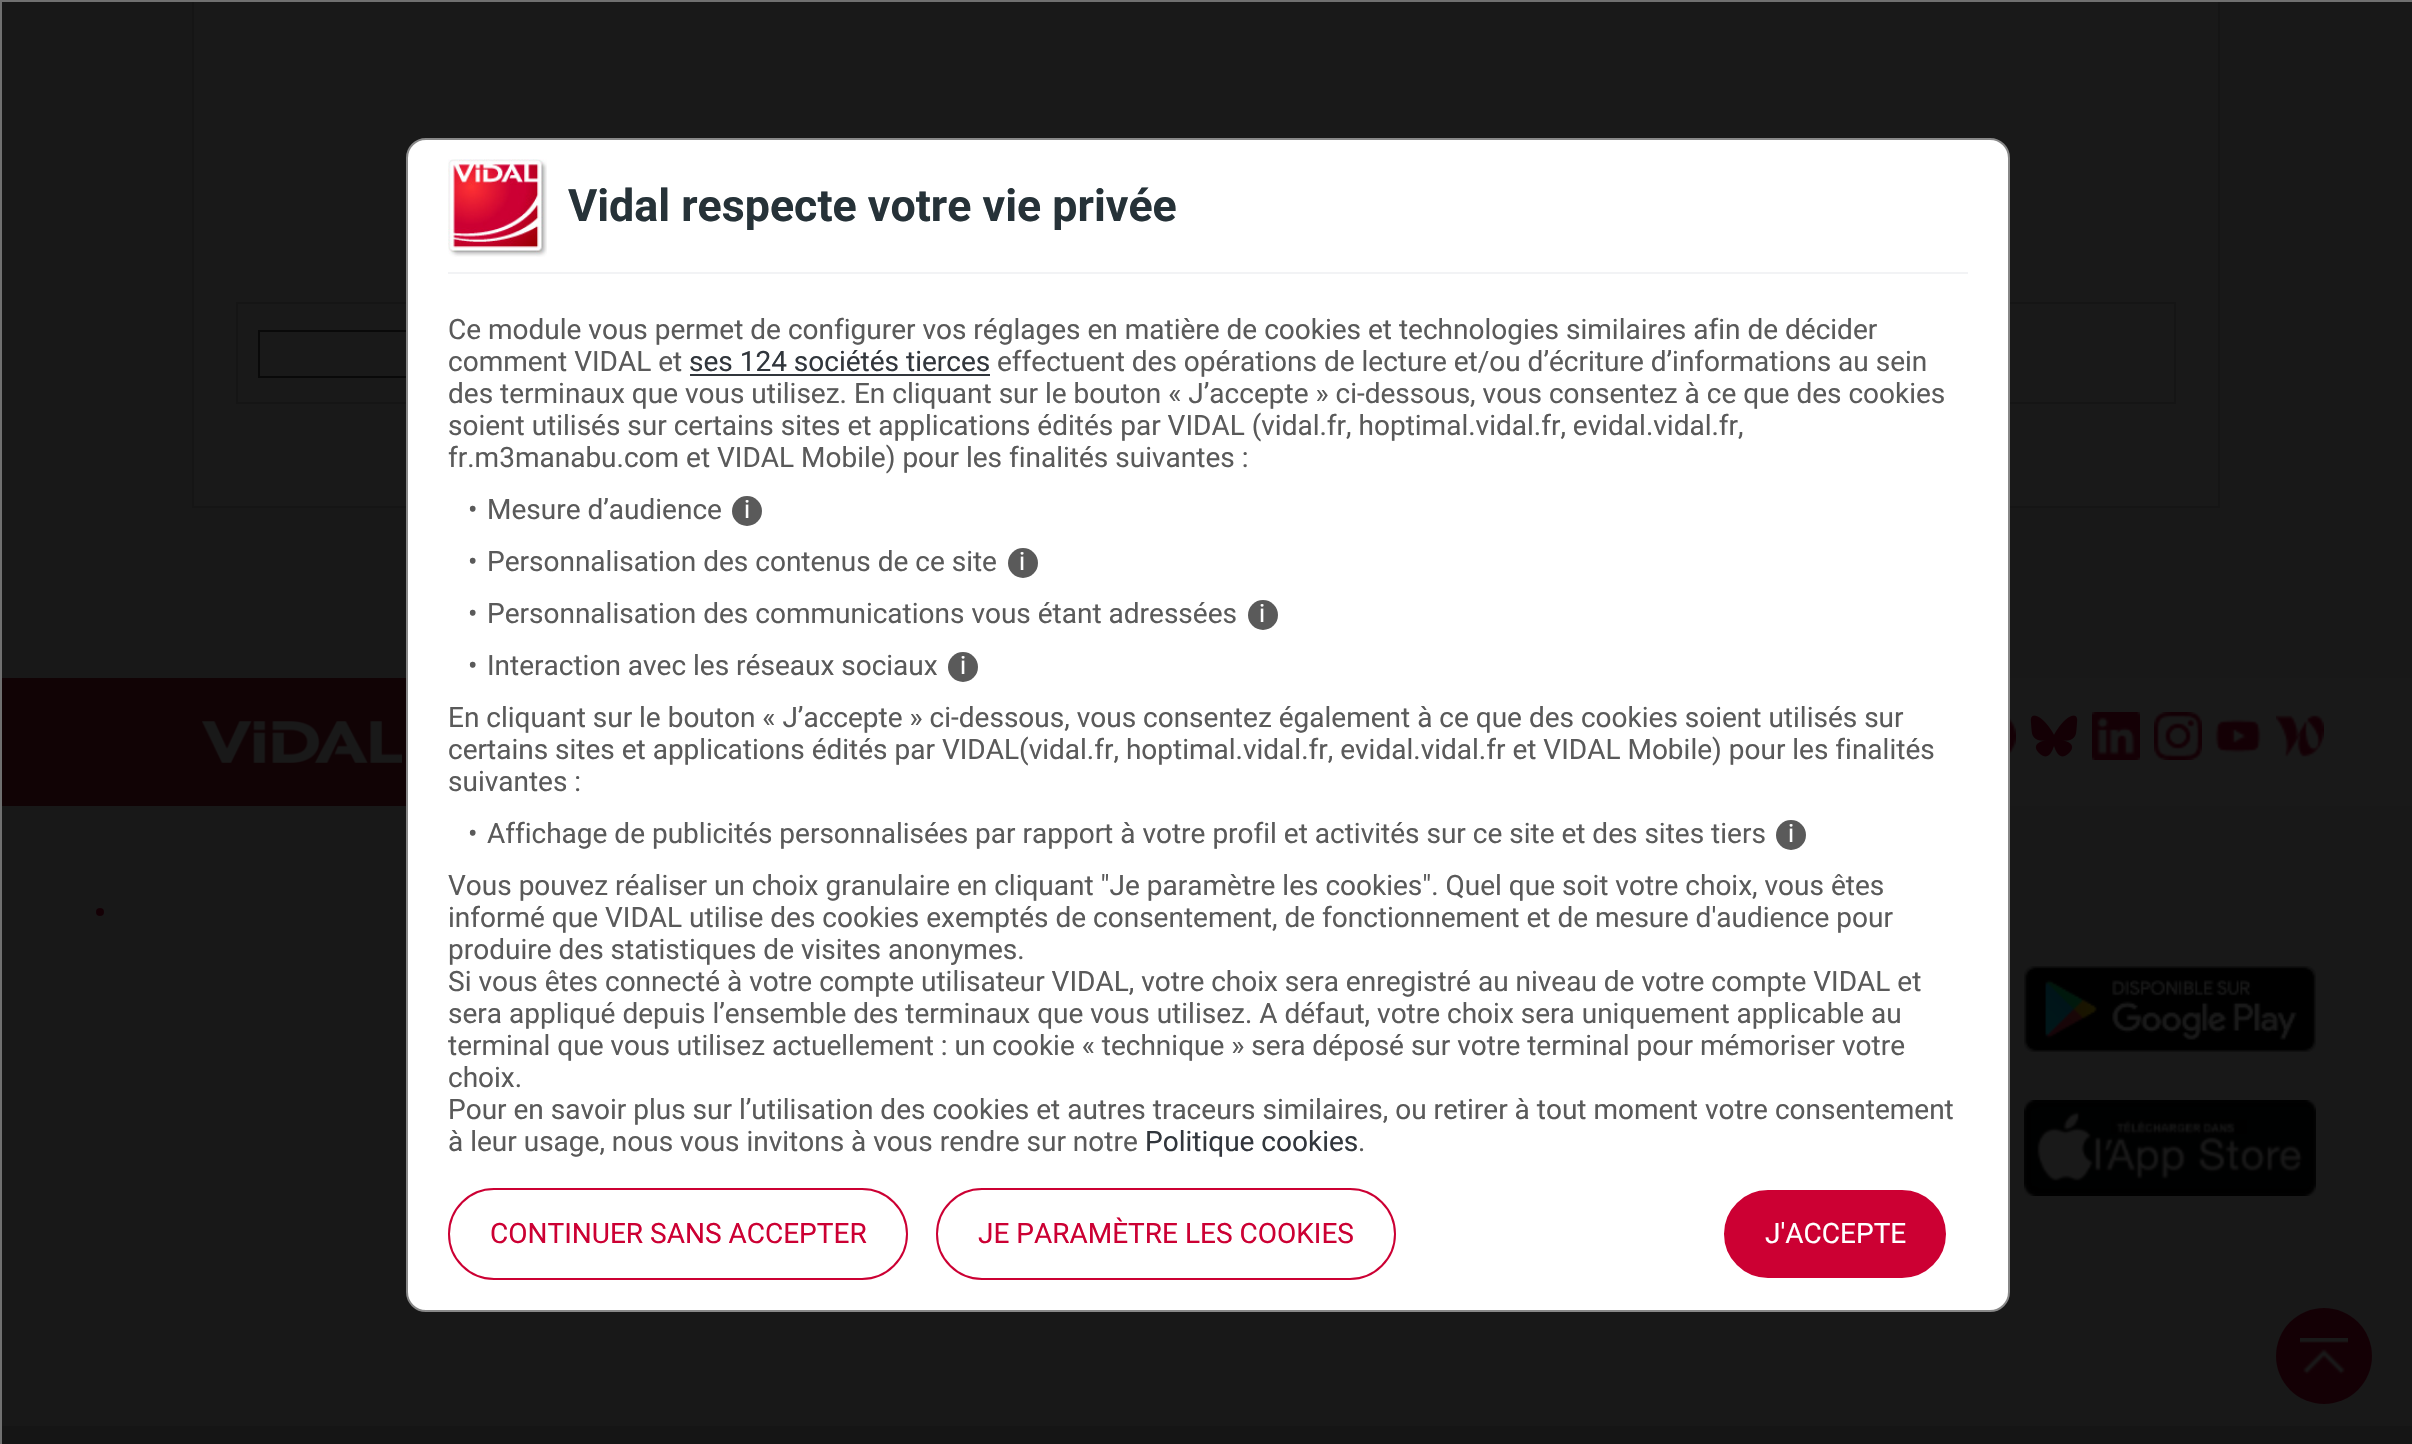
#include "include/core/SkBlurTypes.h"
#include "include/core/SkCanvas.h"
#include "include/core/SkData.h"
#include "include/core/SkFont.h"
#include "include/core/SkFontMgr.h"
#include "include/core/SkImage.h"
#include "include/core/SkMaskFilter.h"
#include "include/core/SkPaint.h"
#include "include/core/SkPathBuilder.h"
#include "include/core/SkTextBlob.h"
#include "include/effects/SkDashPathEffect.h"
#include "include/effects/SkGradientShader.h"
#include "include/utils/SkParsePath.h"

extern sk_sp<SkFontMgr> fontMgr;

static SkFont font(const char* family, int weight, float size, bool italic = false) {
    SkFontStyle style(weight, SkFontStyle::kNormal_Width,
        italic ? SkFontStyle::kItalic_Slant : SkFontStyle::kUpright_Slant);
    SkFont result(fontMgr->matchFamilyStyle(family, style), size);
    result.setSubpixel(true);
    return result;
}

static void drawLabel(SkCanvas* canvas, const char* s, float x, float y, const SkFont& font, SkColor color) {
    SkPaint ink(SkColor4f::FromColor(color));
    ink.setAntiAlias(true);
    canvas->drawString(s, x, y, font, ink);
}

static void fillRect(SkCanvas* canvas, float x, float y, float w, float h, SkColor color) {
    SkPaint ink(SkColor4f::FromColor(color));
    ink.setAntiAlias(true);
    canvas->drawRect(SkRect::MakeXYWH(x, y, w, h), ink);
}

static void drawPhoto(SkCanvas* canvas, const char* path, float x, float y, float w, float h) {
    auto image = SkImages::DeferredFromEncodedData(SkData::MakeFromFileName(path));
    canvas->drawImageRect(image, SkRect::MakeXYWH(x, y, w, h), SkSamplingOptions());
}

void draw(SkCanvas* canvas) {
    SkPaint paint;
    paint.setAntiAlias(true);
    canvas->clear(0xFFECECEE);
    fillRect(canvas, 194, 2, 2024, 504, 0xFFFFFFFF);
    paint.setStroke(true);
    paint.setStrokeWidth(2);
    paint.setColor(0xFFD0D1D4);
    canvas->drawRect(SkRect::MakeXYWH(193, -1, 2026, 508), paint);
    canvas->drawRect(SkRect::MakeXYWH(237, 303, 1938, 100), paint);
    paint.setColor(0xFF5A5A5A);
    canvas->drawRect(SkRect::MakeXYWH(259, 331, 224, 46), paint);
    fillRect(canvas, 2010, 678, 402, 128, 0xFFFFFFFF);
    fillRect(canvas, 2, 678, 404, 128, 0xFFA81830);
    drawPhoto(canvas, "assets/img2.png", 202, 721, 200, 42);
    drawPhoto(canvas, "assets/img3.png", 2010, 717, 6, 38);
    drawPhoto(canvas, "assets/img4.png", 2030, 715, 48, 42);
    drawPhoto(canvas, "assets/img5.png", 2092, 712, 48, 48);
    drawPhoto(canvas, "assets/img6.png", 2154, 712, 48, 48);
    drawPhoto(canvas, "assets/img7.png", 2215, 719, 46, 34);
    drawPhoto(canvas, "assets/img8.png", 2276, 715, 48, 42);
    paint.setStroke(false);
    paint.setColor(0xFFCC0033);
    canvas->drawCircle(100, 912, 4, paint);
    drawPhoto(canvas, "assets/img9.png", 2024, 966, 292, 86);
    drawPhoto(canvas, "assets/img10.png", 2024, 1100, 292, 96);
    fillRect(canvas, 2, 1426, 2410, 18, 0xFFCECED4);
    canvas->drawCircle(2324, 1356, 48, paint);
    drawPhoto(canvas, "assets/img11.png", 2300, 1338, 48, 36);
    paint.setColor(0xE6000000);
    canvas->drawRect(SkRect::MakeXYWH(1, 1, 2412, 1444), paint);
    paint.setStroke(true);
    paint.setColor(0xFF707070);
    canvas->drawRect(SkRect::MakeXYWH(1, 1, 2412, 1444), paint);
    paint.setStroke(false);
    paint.setColor(0xFFFFFFFF);
    canvas->drawRoundRect(SkRect::MakeXYWH(407, 139, 1602, 1172), 19, 19, paint);
    paint.setStroke(true);
    paint.setColor(0xFF888888);
    canvas->drawRoundRect(SkRect::MakeXYWH(407, 139, 1602, 1172), 19, 19, paint);
    drawPhoto(canvas, "assets/img1.png", 448, 159, 99, 98);
    fillRect(canvas, 448, 272, 1520, 2, 0xFFF2F3F5);
    SkFont font1 = font("Roboto", 700, 44.75f);
    drawLabel(canvas, "Vidal respecte votre vie privée", 568, 221, font1, 0xFF263238);
    SkFont font2 = font("Roboto", 400, 28);
    drawLabel(canvas, "Ce module vous permet de configurer vos réglages en matière de cookies et technologies similaires afin de décider", 448, 339, font2, 0xFF5A5A5A);
    drawLabel(canvas, "comment VIDAL et", 448, 371, font2, 0xFF5A5A5A);
    drawLabel(canvas, "ses 124 sociétés tierces", 689, 371, font2, 0xFF31363C);
    fillRect(canvas, 690, 374, 300, 2, 0xFF31363C);
    drawLabel(canvas, "effectuent des opérations de lecture et/ou d’écriture d’informations au sein", 997, 371, font2, 0xFF5A5A5A);
    drawLabel(canvas, "des terminaux que vous utilisez. En cliquant sur le bouton « J’accepte » ci-dessous, vous consentez à ce que des cookies", 448, 403, font2, 0xFF5A5A5A);
    drawLabel(canvas, "soient utilisés sur certains sites et applications édités par VIDAL (vidal.fr, hoptimal.vidal.fr, evidal.vidal.fr,", 448, 435, font2, 0xFF5A5A5A);
    drawLabel(canvas, "fr.m3manabu.com et VIDAL Mobile) pour les finalités suivantes :", 448, 467, font2, 0xFF5A5A5A);
    drawLabel(canvas, "•", 468, 519, font2, 0xFF5A5A5A);
    drawLabel(canvas, "Mesure d’audience", 487, 519, font2, 0xFF5A5A5A);
    paint.setStroke(false);
    paint.setColor(0xFF5A5A5A);
    canvas->drawCircle(747, 511, 15, paint);
    SkFont font3 = font("Roboto", 400, 25);
    drawLabel(canvas, "i", 744, 518, font3, 0xFFFFFFFF);
    drawLabel(canvas, "•", 468, 571, font2, 0xFF5A5A5A);
    drawLabel(canvas, "Personnalisation des contenus de ce site", 487, 571, font2, 0xFF5A5A5A);
    canvas->drawCircle(1023, 563, 15, paint);
    drawLabel(canvas, "i", 1019, 570, font3, 0xFFFFFFFF);
    drawLabel(canvas, "•", 468, 623, font2, 0xFF5A5A5A);
    drawLabel(canvas, "Personnalisation des communications vous étant adressées", 487, 623, font2, 0xFF5A5A5A);
    canvas->drawCircle(1263, 615, 15, paint);
    drawLabel(canvas, "i", 1259, 622, font3, 0xFFFFFFFF);
    drawLabel(canvas, "•", 468, 675, font2, 0xFF5A5A5A);
    drawLabel(canvas, "Interaction avec les réseaux sociaux", 487, 675, font2, 0xFF5A5A5A);
    canvas->drawCircle(963, 667, 15, paint);
    drawLabel(canvas, "i", 960, 674, font3, 0xFFFFFFFF);
    drawLabel(canvas, "En cliquant sur le bouton « J’accepte » ci-dessous, vous consentez également à ce que des cookies soient utilisés sur", 448, 727, font2, 0xFF5A5A5A);
    drawLabel(canvas, "certains sites et applications édités par VIDAL(vidal.fr, hoptimal.vidal.fr, evidal.vidal.fr et VIDAL Mobile) pour les finalités", 448, 759, font2, 0xFF5A5A5A);
    drawLabel(canvas, "suivantes :", 448, 791, font2, 0xFF5A5A5A);
    drawLabel(canvas, "•", 468, 843, font2, 0xFF5A5A5A);
    drawLabel(canvas, "Affichage de publicités personnalisées par rapport à votre profil et activités sur ce site et des sites tiers", 487, 843, font2, 0xFF5A5A5A);
    canvas->drawCircle(1791, 835, 15, paint);
    drawLabel(canvas, "i", 1788, 842, font3, 0xFFFFFFFF);
    drawLabel(canvas, "Vous pouvez réaliser un choix granulaire en cliquant \"Je paramètre les cookies\". Quel que soit votre choix, vous êtes", 448, 895, font2, 0xFF5A5A5A);
    drawLabel(canvas, "informé que VIDAL utilise des cookies exemptés de consentement, de fonctionnement et de mesure d'audience pour", 448, 927, font2, 0xFF5A5A5A);
    drawLabel(canvas, "produire des statistiques de visites anonymes.", 448, 959, font2, 0xFF5A5A5A);
    drawLabel(canvas, "Si vous êtes connecté à votre compte utilisateur VIDAL, votre choix sera enregistré au niveau de votre compte VIDAL et", 448, 991, font2, 0xFF5A5A5A);
    drawLabel(canvas, "sera appliqué depuis l’ensemble des terminaux que vous utilisez. A défaut, votre choix sera uniquement applicable au", 448, 1023, font2, 0xFF5A5A5A);
    drawLabel(canvas, "terminal que vous utilisez actuellement : un cookie « technique » sera déposé sur votre terminal pour mémoriser votre", 448, 1055, font2, 0xFF5A5A5A);
    drawLabel(canvas, "choix.", 448, 1087, font2, 0xFF5A5A5A);
    drawLabel(canvas, "Pour en savoir plus sur l’utilisation des cookies et autres traceurs similaires, ou retirer à tout moment votre consentement", 448, 1119, font2, 0xFF5A5A5A);
    drawLabel(canvas, "à leur usage, nous vous invitons à vous rendre sur notre", 448, 1151, font2, 0xFF5A5A5A);
    drawLabel(canvas, "Politique cookies", 1145, 1151, font2, 0xFF31363C);
    drawLabel(canvas, ".", 1358, 1151, font2, 0xFF5A5A5A);
    paint.setStroke(true);
    paint.setColor(0xFFCC0033);
    canvas->drawRoundRect(SkRect::MakeXYWH(449, 1189, 458, 90), 45, 45, paint);
    drawLabel(canvas, "CONTINUER SANS ACCEPTER", 490, 1243, font2, 0xFFCC0033);
    canvas->drawRoundRect(SkRect::MakeXYWH(937, 1189, 458, 90), 45, 45, paint);
    drawLabel(canvas, "JE PARAMÈTRE LES COOKIES", 978, 1243, font2, 0xFFCC0033);
    paint.setStroke(false);
    canvas->drawRoundRect(SkRect::MakeXYWH(1723, 1189, 224, 90), 45, 45, paint);
    paint.setStroke(true);
    paint.setColor(0xFFFFFFFF);
    canvas->drawRoundRect(SkRect::MakeXYWH(1723, 1189, 224, 90), 45, 45, paint);
    drawLabel(canvas, "J'ACCEPTE", 1765, 1243, font2, 0xFFFFFFFF);
}
